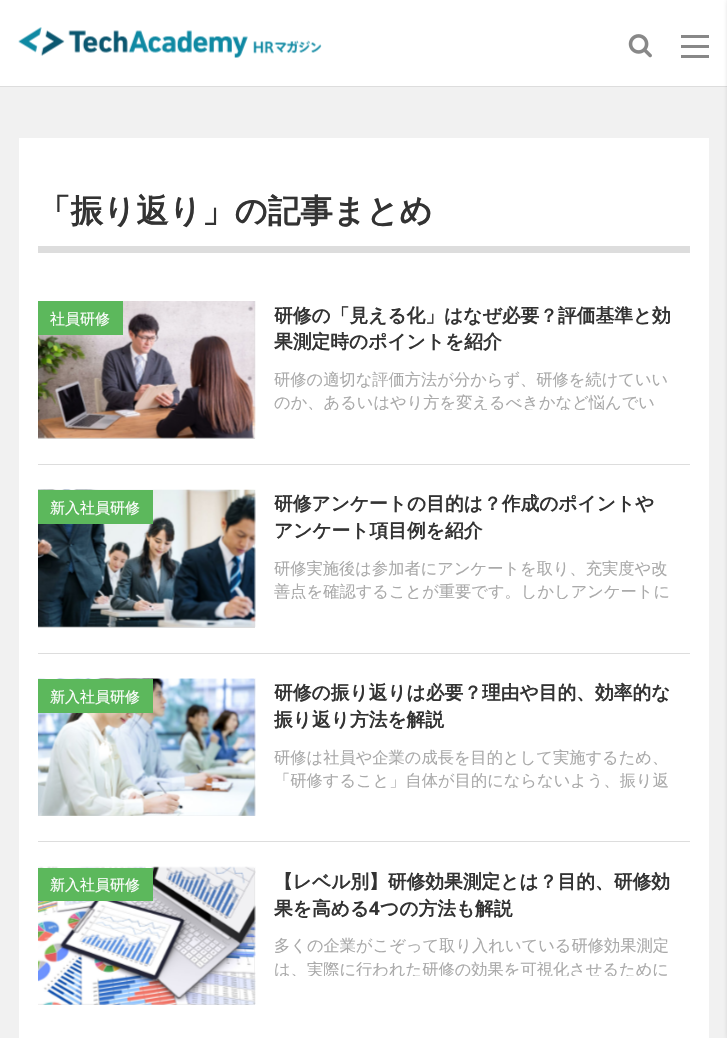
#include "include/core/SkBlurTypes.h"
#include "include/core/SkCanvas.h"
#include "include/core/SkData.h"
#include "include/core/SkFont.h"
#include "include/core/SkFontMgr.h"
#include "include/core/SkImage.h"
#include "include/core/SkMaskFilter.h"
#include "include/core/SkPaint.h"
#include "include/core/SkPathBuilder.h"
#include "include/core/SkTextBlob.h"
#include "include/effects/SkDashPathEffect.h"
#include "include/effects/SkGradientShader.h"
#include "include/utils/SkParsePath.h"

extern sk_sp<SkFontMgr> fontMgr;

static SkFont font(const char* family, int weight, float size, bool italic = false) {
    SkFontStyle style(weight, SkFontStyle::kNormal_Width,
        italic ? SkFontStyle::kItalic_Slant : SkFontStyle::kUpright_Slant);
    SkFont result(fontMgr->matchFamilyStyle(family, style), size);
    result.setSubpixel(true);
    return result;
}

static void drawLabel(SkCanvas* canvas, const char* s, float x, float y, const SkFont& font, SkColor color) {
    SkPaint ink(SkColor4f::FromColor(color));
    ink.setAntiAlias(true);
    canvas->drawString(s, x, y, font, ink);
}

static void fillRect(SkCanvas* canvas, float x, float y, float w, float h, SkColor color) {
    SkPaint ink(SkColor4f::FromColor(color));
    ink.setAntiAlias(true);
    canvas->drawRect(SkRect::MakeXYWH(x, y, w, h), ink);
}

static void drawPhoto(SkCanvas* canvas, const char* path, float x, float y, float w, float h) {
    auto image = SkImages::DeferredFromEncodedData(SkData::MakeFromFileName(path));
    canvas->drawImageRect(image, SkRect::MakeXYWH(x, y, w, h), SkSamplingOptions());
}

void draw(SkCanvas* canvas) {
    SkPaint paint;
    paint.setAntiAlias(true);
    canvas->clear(0xFFF1F1F1);
    fillRect(canvas, 0, 0, 727, 86, 0xFFFFFFFF);
    fillRect(canvas, 0, 86, 727, 1, 0xFFDDDDDD);
    drawPhoto(canvas, "assets/img1.png", 18, 27, 304, 31);
    drawPhoto(canvas, "assets/img2.png", 628, 34, 24, 24);
    fillRect(canvas, 681, 35, 28, 3, 0xFF888888);
    fillRect(canvas, 681, 45, 28, 3, 0xFF888888);
    fillRect(canvas, 681, 55, 28, 3, 0xFF888888);
    paint.setColor(0x33333333);
    paint.setMaskFilter(SkMaskFilter::MakeBlur(kNormal_SkBlurStyle, 2.5f));
    canvas->drawRect(SkRect::MakeXYWH(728, 0, 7, 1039), paint);
    paint.setMaskFilter(nullptr);
    fillRect(canvas, 19, 138, 690, 900, 0xFFFFFFFF);
    fillRect(canvas, 38, 246, 652, 7, 0xFFDDDDDD);
    SkFont font1 = font("WenQuanYi Zen Hei", 700, 32.5f);
    drawLabel(canvas, "「振り返り」の記事まとめ", 38, 222, font1, 0xFF333333);
    fillRect(canvas, 38, 464, 652, 1, 0xFFDDDDDD);
    fillRect(canvas, 38, 301, 217, 138, 0xFFDDDDDD);
    drawPhoto(canvas, "assets/img3.png", 38, 301, 218, 138);
    SkFont font2 = font("WenQuanYi Zen Hei", 700, 18.75f);
    drawLabel(canvas, "研修の「見える化」はなぜ必要？評価基準と効", 274, 322, font2, 0xFF333333);
    drawLabel(canvas, "果測定時のポイントを紹介", 274, 348, font2, 0xFF333333);
    SkFont font3 = font("WenQuanYi Zen Hei", 500, 16.25f);
    drawLabel(canvas, "研修の適切な評価方法が分からず、研修を続けていい", 274, 385, font3, 0xFFAAAAAA);
    canvas->save();
    canvas->clipRect(SkRect::MakeXYWH(274, 368, 397, 42));
    drawLabel(canvas, "のか、あるいはやり方を変えるべきかなど悩んでい", 274, 408, font3, 0xFFAAAAAA);
    canvas->restore();
    fillRect(canvas, 38, 301, 85, 34, 0xFF5CB85C);
    SkFont font4 = font("WenQuanYi Zen Hei", 500, 15);
    drawLabel(canvas, "社員研修", 50, 324, font4, 0xFFFFFFFF);
    fillRect(canvas, 38, 653, 652, 1, 0xFFDDDDDD);
    fillRect(canvas, 38, 490, 217, 138, 0xFFDDDDDD);
    drawPhoto(canvas, "assets/img4.png", 38, 489, 218, 139);
    drawLabel(canvas, "研修アンケートの目的は？作成のポイントや", 274, 510, font2, 0xFF333333);
    drawLabel(canvas, "アンケート項目例を紹介", 274, 537, font2, 0xFF333333);
    drawLabel(canvas, "研修実施後は参加者にアンケートを取り、充実度や改", 274, 574, font3, 0xFFAAAAAA);
    canvas->save();
    canvas->clipRect(SkRect::MakeXYWH(274, 556, 397, 43));
    drawLabel(canvas, "善点を確認することが重要です。しかしアンケートに", 274, 597, font3, 0xFFAAAAAA);
    canvas->restore();
    fillRect(canvas, 38, 490, 115, 34, 0xFF5CB85C);
    drawLabel(canvas, "新入社員研修", 50, 513, font4, 0xFFFFFFFF);
    fillRect(canvas, 38, 841, 652, 1, 0xFFDDDDDD);
    fillRect(canvas, 38, 679, 217, 137, 0xFFDDDDDD);
    drawPhoto(canvas, "assets/img5.png", 38, 678, 218, 138);
    drawLabel(canvas, "研修の振り返りは必要？理由や目的、効率的な", 274, 699, font2, 0xFF333333);
    drawLabel(canvas, "振り返り方法を解説", 274, 726, font2, 0xFF333333);
    drawLabel(canvas, "研修は社員や企業の成長を目的として実施するため、", 274, 763, font3, 0xFFAAAAAA);
    canvas->save();
    canvas->clipRect(SkRect::MakeXYWH(274, 745, 397, 43));
    drawLabel(canvas, "「研修すること」自体が目的にならないよう、振り返", 274, 786, font3, 0xFFAAAAAA);
    canvas->restore();
    fillRect(canvas, 38, 679, 115, 34, 0xFF5CB85C);
    drawLabel(canvas, "新入社員研修", 50, 702, font4, 0xFFFFFFFF);
    fillRect(canvas, 38, 868, 217, 137, 0xFFDDDDDD);
    drawPhoto(canvas, "assets/img6.png", 38, 866, 218, 139);
    drawLabel(canvas, "【レベル別】研修効果測定とは？目的、研修効", 274, 888, font2, 0xFF333333);
    drawLabel(canvas, "果を高める", 274, 915, font2, 0xFF333333);
    SkFont font5 = font("Open Sans", 700, 18.75f);
    drawLabel(canvas, "4", 369, 915, font5, 0xFF333333);
    drawLabel(canvas, "つの方法も解説", 380, 915, font2, 0xFF333333);
    drawLabel(canvas, "多くの企業がこぞって取り入れいている研修効果測定", 274, 951, font3, 0xFFAAAAAA);
    canvas->save();
    canvas->clipRect(SkRect::MakeXYWH(274, 934, 397, 42));
    drawLabel(canvas, "は、実際に行われた研修の効果を可視化させるために", 274, 975, font3, 0xFFAAAAAA);
    canvas->restore();
    fillRect(canvas, 38, 868, 115, 33, 0xFF5CB85C);
    drawLabel(canvas, "新入社員研修", 50, 890, font4, 0xFFFFFFFF);
}
